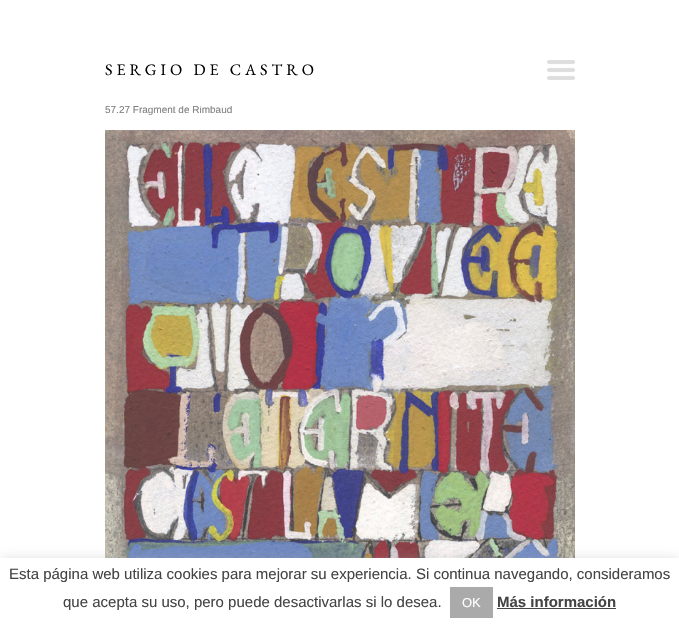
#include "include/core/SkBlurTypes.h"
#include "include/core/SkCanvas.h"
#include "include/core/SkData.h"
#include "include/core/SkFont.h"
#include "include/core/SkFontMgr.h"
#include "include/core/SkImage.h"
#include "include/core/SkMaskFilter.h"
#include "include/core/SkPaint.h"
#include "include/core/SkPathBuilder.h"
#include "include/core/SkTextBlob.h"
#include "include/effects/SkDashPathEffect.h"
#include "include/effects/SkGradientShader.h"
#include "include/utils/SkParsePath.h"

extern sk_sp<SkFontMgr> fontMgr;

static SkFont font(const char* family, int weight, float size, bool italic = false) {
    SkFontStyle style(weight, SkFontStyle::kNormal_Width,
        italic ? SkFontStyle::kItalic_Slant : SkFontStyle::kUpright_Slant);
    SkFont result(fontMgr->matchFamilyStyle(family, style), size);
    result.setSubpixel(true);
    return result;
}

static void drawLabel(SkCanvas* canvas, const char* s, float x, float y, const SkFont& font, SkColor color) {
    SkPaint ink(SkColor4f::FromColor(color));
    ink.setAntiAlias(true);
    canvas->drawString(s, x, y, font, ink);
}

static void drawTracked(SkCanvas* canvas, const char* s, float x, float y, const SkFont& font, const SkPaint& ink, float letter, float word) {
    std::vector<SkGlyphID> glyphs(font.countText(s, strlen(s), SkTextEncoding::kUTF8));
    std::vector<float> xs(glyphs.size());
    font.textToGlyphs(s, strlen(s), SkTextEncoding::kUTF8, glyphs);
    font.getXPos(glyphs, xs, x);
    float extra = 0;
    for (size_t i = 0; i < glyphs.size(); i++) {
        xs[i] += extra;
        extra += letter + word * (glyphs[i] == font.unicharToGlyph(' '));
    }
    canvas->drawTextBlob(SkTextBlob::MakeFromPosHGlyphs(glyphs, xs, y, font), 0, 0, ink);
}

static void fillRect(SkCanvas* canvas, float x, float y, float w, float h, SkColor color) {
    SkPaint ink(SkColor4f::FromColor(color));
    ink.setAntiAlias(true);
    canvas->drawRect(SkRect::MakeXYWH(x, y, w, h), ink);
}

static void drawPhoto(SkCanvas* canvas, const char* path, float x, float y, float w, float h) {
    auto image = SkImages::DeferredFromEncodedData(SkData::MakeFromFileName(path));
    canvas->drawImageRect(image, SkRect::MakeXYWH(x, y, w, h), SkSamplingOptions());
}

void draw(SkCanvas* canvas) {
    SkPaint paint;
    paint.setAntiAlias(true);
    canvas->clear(0xFFFFFFFF);
    SkFont font1 = font("Liberation Sans", 400, 10);
    drawLabel(canvas, "57.27 Fragment de Rimbaud", 105, 113, font1, 0xFF808080);
    fillRect(canvas, 181, 105, 51, 1, 0xFFFFFFFF);
    SkFont font2 = font("EB Garamond", 400, 16);
    paint.setColor(0xFF000000);
    drawTracked(canvas, "SERGIO DE CASTRO", 105, 75, font2, paint, 4, 0);
    drawPhoto(canvas, "assets/img1.png", 547, 60, 28, 20);
    drawPhoto(canvas, "assets/img2.png", 105, 130, 470, 428);
    paint.setColor(0x4DACABAB);
    paint.setMaskFilter(SkMaskFilter::MakeBlur(kNormal_SkBlurStyle, 5));
    canvas->drawRect(SkRect::MakeXYWH(0, 557, 679, 67), paint);
    paint.setMaskFilter(nullptr);
    fillRect(canvas, 0, 558, 679, 67, 0xFFFFFFFF);
    SkFont font3 = font("Liberation Sans", 400, 15);
    drawLabel(canvas, "Esta página web utiliza cookies para mejorar su experiencia. Si continua navegando, consideramos", 9, 579, font3, 0xFF444444);
    drawLabel(canvas, "que acepta su uso, pero puede desactivarlas si lo desea.", 63, 607, font3, 0xFF444444);
    fillRect(canvas, 450, 587, 43, 31, 0xFFAAAAAA);
    SkFont font4 = font("Liberation Sans", 400, 13);
    drawLabel(canvas, "OK", 462, 607, font4, 0xFFFFFFFF);
    SkFont font5 = font("Liberation Sans", 700, 15);
    drawLabel(canvas, "Más información", 497, 607, font5, 0xFF444444);
    fillRect(canvas, 497, 608, 119, 1, 0xFF444444);
}
